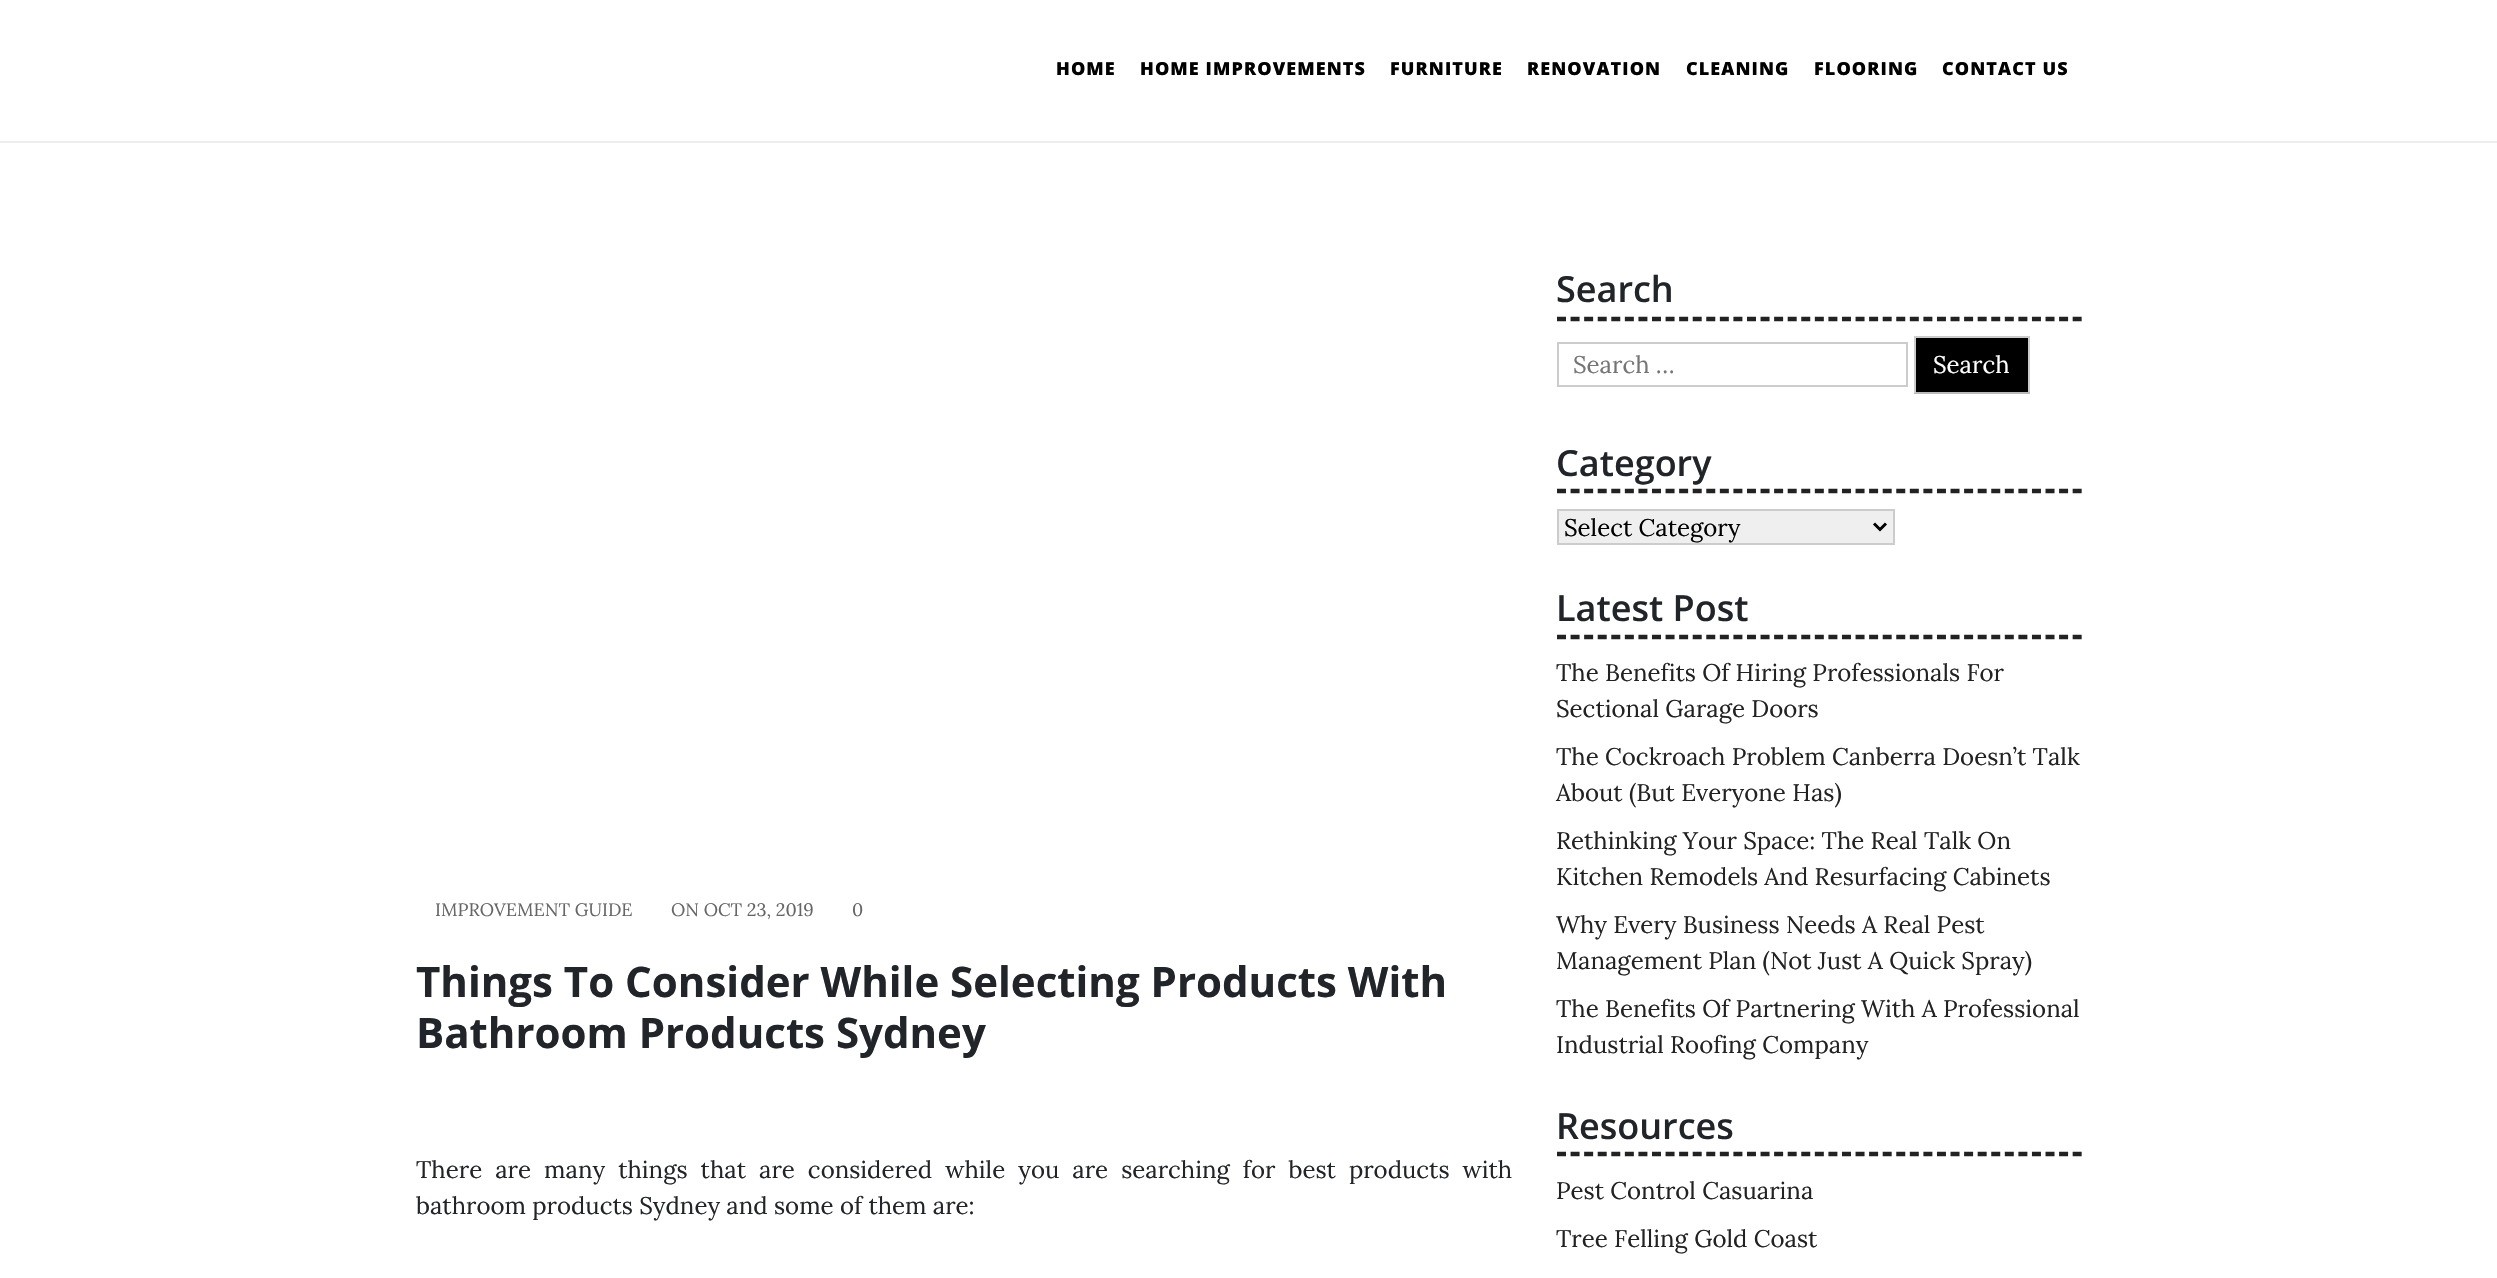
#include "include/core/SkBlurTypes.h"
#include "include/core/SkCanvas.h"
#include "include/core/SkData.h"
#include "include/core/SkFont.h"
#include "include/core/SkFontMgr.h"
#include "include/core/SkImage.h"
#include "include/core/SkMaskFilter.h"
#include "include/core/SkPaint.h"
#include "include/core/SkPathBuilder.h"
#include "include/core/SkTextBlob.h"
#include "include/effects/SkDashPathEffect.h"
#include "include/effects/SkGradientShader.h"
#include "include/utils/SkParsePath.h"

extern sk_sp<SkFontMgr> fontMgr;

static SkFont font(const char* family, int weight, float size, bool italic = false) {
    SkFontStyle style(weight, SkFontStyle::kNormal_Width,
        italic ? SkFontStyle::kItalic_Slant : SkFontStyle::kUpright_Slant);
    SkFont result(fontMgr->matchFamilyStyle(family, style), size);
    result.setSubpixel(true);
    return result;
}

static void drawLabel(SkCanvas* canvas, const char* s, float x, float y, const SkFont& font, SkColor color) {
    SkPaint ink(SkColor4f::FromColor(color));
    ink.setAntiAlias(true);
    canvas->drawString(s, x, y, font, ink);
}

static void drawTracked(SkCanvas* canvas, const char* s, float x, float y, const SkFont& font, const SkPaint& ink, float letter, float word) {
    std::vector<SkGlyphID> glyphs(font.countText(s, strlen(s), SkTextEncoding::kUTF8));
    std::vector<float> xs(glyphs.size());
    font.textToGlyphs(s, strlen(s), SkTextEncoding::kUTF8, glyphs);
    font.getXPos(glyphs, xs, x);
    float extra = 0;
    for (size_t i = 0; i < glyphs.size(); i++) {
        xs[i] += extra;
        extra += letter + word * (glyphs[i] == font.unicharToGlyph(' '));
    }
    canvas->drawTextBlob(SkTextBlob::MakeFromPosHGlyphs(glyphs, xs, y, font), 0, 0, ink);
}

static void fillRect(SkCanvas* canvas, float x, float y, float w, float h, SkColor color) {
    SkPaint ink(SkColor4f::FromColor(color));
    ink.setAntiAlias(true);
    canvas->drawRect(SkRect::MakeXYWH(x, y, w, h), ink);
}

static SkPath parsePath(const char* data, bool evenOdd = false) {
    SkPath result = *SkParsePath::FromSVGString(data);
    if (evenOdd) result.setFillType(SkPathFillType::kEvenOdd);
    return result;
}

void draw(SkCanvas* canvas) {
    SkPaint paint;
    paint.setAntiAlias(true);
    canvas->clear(0xFFFFFFFF);
    fillRect(canvas, 0, 141, 2497, 2, 0xFFEEEEEE);
    SkFont font1 = font("Open Sans", 800, 18);
    paint.setColor(0xFF000000);
    drawTracked(canvas, "HOME", 1056, 75, font1, paint, 1.1f, 0);
    drawTracked(canvas, "HOME IMPROVEMENTS", 1140, 75, font1, paint, 1.1f, 0);
    drawTracked(canvas, "FURNITURE", 1390, 75, font1, paint, 1.1f, 0);
    drawTracked(canvas, "RENOVATION", 1527, 75, font1, paint, 1.1f, 0);
    drawTracked(canvas, "CLEANING", 1686, 75, font1, paint, 1.1f, 0);
    drawTracked(canvas, "FLOORING", 1814, 75, font1, paint, 1.1f, 0);
    drawTracked(canvas, "CONTACT US", 1942, 75, font1, paint, 1.1f, 0);
    SkFont font2 = font("Lora", 400, 18);
    drawLabel(canvas, "IMPROVEMENT GUIDE", 435, 916, font2, 0xFF666666);
    drawLabel(canvas, "ON OCT 23, 2019", 671, 916, font2, 0xFF666666);
    drawLabel(canvas, "0", 852, 916, font2, 0xFF666666);
    SkFont font3 = font("Open Sans", 700, 42);
    drawLabel(canvas, "Things To Consider While Selecting Products With", 416, 997, font3, 0xFF212529);
    drawLabel(canvas, "Bathroom Products Sydney", 416, 1048, font3, 0xFF212529);
    fillRect(canvas, 863, 1058, 105, 1, 0xFFFFFFFF);
    SkFont font4 = font("Lora", 400, 24);
    paint.setColor(0xFF212529);
    drawTracked(canvas, "There are many things that are considered while you are searching for best products with", 416, 1178, font4, paint, 0, 6.75f);
    drawLabel(canvas, "bathroom products Sydney and some of them are:", 416, 1214, font4, 0xFF212529);
    paint.setStroke(true);
    paint.setStrokeWidth(4.5f);
    paint.setColor(0xFF222222);
    paint.setPathEffect(SkDashPathEffect::Make({{9, 4.57f}}, 0));
    canvas->drawPath(parsePath("M1557 319H2082"), paint);
    paint.setPathEffect(nullptr);
    SkFont font5 = font("Open Sans", 600, 36);
    drawLabel(canvas, "Search", 1556, 302, font5, 0xFF212529);
    paint.setStrokeWidth(2);
    paint.setColor(0xFFCCCCCC);
    canvas->drawRect(SkRect::MakeXYWH(1558, 343, 349, 43), paint);
    drawLabel(canvas, "Search …", 1573, 373, font4, 0xFF757575);
    fillRect(canvas, 1916, 338, 112, 54, 0xFF000000);
    fillRect(canvas, 1914, 336, 116, 2, 0xFFCCCCCC);
    fillRect(canvas, 2028, 336, 2, 57, 0xFFCCCCCC);
    fillRect(canvas, 1914, 392, 116, 2, 0xFFBBBBBB);
    fillRect(canvas, 1914, 336, 2, 57, 0xFFCCCCCC);
    drawLabel(canvas, "Search", 1933, 373, font4, 0xFFFFFFFF);
    paint.setStrokeWidth(4.5f);
    paint.setColor(0xFF222222);
    paint.setPathEffect(SkDashPathEffect::Make({{9, 4.57f}}, 0));
    canvas->drawPath(parsePath("M1557 491H2082"), paint);
    paint.setPathEffect(nullptr);
    drawLabel(canvas, "Category", 1556, 476, font5, 0xFF212529);
    paint.setStroke(false);
    paint.setColor(0xFFEFEFEF);
    canvas->drawRect(SkRect::MakeXYWH(1558, 510, 336, 34), paint);
    paint.setStroke(true);
    paint.setStrokeWidth(2);
    paint.setColor(0xFFCCCCCC);
    canvas->drawRect(SkRect::MakeXYWH(1558, 510, 336, 34), paint);
    paint.setStrokeWidth(3);
    paint.setColor(0xFF000000);
    canvas->drawPath(parsePath("M1874 523.5L1880 529.5L1886 523.5"), paint);
    drawLabel(canvas, "Select Category", 1564, 536, font4, 0xFF000000);
    paint.setStrokeWidth(4.5f);
    paint.setColor(0xFF222222);
    paint.setPathEffect(SkDashPathEffect::Make({{9, 4.57f}}, 0));
    canvas->drawPath(parsePath("M1557 637H2082"), paint);
    paint.setPathEffect(nullptr);
    drawLabel(canvas, "Latest Post", 1556, 621, font5, 0xFF212529);
    drawLabel(canvas, "The Benefits Of Hiring Professionals For", 1556, 681, font4, 0xFF222222);
    drawLabel(canvas, "Sectional Garage Doors", 1556, 717, font4, 0xFF222222);
    drawLabel(canvas, "The Cockroach Problem Canberra Doesn’t Talk", 1556, 765, font4, 0xFF222222);
    drawLabel(canvas, "About (But Everyone Has)", 1556, 801, font4, 0xFF222222);
    drawLabel(canvas, "Rethinking Your Space: The Real Talk On", 1556, 849, font4, 0xFF222222);
    drawLabel(canvas, "Kitchen Remodels And Resurfacing Cabinets", 1556, 885, font4, 0xFF222222);
    drawLabel(canvas, "Why Every Business Needs A Real Pest", 1556, 933, font4, 0xFF222222);
    drawLabel(canvas, "Management Plan (Not Just A Quick Spray)", 1556, 969, font4, 0xFF222222);
    drawLabel(canvas, "The Benefits Of Partnering With A Professional", 1556, 1017, font4, 0xFF222222);
    drawLabel(canvas, "Industrial Roofing Company", 1556, 1053, font4, 0xFF222222);
    paint.setPathEffect(SkDashPathEffect::Make({{9, 4.57f}}, 0));
    canvas->drawPath(parsePath("M1557 1154H2082"), paint);
    paint.setPathEffect(nullptr);
    drawLabel(canvas, "Resources", 1556, 1139, font5, 0xFF212529);
    drawLabel(canvas, "Pest Control Casuarina", 1556, 1199, font4, 0xFF222222);
    drawLabel(canvas, "Tree Felling Gold Coast", 1556, 1247, font4, 0xFF222222);
}
